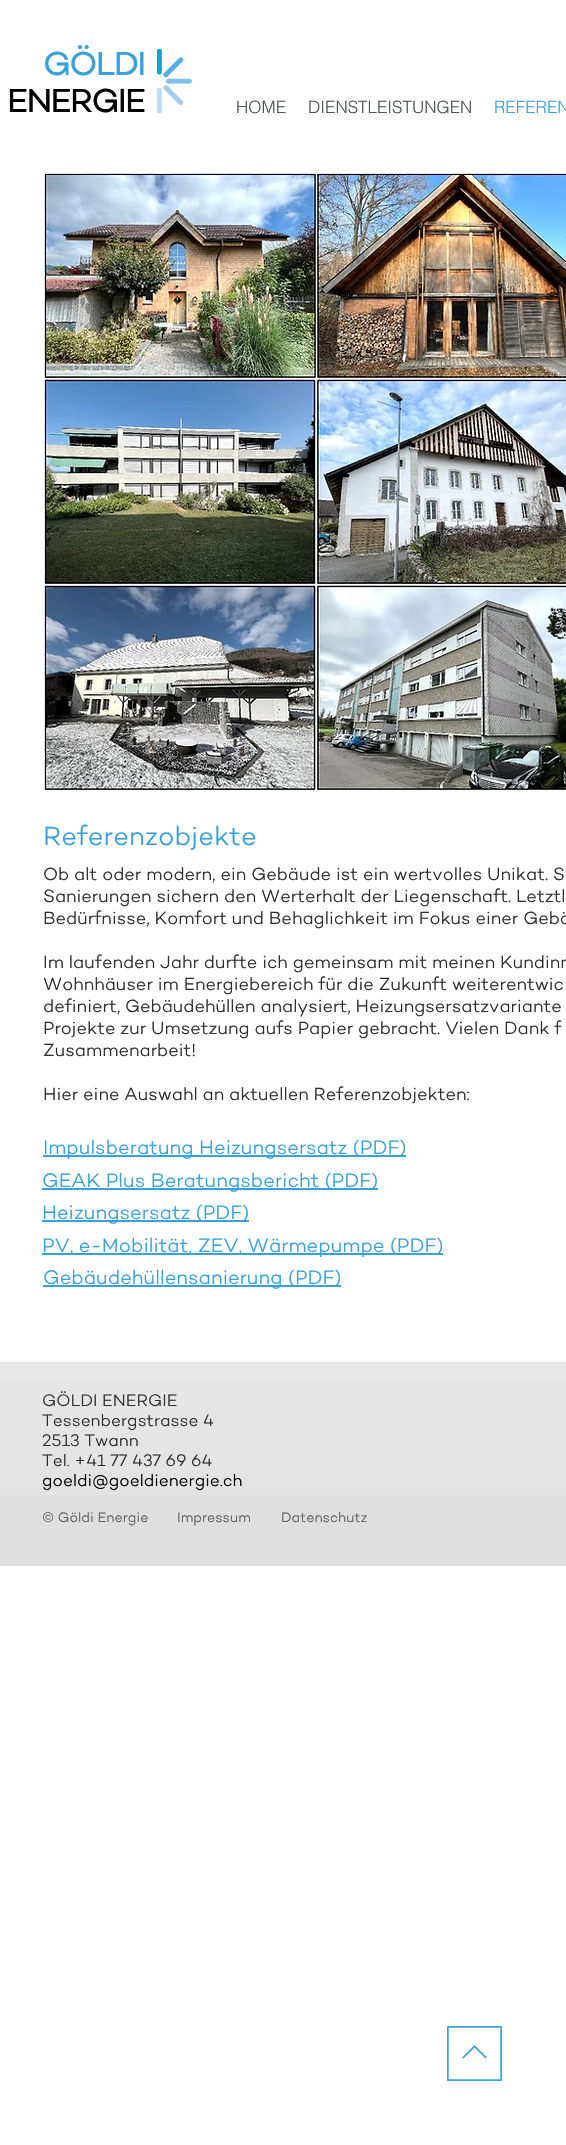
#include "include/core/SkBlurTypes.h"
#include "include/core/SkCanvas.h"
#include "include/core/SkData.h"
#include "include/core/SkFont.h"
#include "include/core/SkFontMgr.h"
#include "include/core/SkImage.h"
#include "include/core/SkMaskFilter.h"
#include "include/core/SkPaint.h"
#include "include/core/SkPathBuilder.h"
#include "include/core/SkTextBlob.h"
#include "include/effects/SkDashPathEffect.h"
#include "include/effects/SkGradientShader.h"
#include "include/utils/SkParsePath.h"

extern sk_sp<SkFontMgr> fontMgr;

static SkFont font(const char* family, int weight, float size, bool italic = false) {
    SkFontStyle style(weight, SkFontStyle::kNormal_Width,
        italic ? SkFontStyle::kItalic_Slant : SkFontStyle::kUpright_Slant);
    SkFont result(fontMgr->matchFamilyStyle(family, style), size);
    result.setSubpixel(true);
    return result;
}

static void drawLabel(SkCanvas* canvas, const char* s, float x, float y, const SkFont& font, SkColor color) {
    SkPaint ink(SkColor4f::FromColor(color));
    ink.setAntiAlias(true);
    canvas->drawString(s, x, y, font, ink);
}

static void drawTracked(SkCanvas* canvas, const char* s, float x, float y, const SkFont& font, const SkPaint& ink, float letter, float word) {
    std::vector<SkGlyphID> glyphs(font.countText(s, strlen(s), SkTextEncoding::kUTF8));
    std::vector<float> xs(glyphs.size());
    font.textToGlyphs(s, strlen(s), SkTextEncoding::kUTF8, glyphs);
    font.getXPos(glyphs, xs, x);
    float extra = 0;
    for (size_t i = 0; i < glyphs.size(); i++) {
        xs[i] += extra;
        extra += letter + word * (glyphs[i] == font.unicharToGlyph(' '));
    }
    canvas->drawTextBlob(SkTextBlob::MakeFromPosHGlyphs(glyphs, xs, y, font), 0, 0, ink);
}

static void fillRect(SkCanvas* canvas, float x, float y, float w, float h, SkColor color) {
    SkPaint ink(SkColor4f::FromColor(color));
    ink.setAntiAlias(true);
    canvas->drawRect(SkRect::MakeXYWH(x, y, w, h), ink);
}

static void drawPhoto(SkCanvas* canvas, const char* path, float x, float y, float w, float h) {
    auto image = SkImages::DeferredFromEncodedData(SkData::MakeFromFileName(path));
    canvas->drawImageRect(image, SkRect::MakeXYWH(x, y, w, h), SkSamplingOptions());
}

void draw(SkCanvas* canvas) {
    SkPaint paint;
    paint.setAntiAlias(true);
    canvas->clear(0xFFFFFFFF);
    SkFont font1 = font("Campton", 400, 34);
    paint.setColor(0xFF38A1D9);
    drawTracked(canvas, "GÖLDI", 43, 75, font1, paint, -1.75f, 0);
    paint.setColor(0xFF000000);
    drawTracked(canvas, "ENERGIE", 7, 112, font1, paint, -1.75f, 0);
    drawPhoto(canvas, "assets/img1.png", 157, 49, 35, 64);
    SkFont font2 = font("helvetica", 300, 17);
    drawLabel(canvas, "HOME", 236, 113, font2, 0xFF4B5556);
    drawLabel(canvas, "DIENSTLEISTUNGEN", 308, 113, font2, 0xFF4B5556);
    drawLabel(canvas, "REFEREN", 494, 113, font2, 0xFF38A1D9);
    drawPhoto(canvas, "assets/img2.png", 43, 172, 523, 619);
    SkFont font3 = font("Campton", 300, 27);
    drawLabel(canvas, "Referenzobjekte", 43, 845, font3, 0xFF38A1D9);
    SkFont font4 = font("Campton", 300, 18);
    drawLabel(canvas, "Ob alt oder modern, ein Gebäude ist ein wertvolles Unikat. S", 43, 880, font4, 0xFF2F2E2E);
    drawLabel(canvas, "Sanierungen sichern den Werterhalt der Liegenschaft. Letztl", 43, 902, font4, 0xFF2F2E2E);
    drawLabel(canvas, "Bedürfnisse, Komfort und Behaglichkeit im Fokus einer Gebä", 43, 924, font4, 0xFF2F2E2E);
    drawLabel(canvas, "Im laufenden Jahr durfte ich gemeinsam mit meinen Kundinn", 43, 968, font4, 0xFF2F2E2E);
    drawLabel(canvas, "Wohnhäuser im Energiebereich für die Zukunft weiterentwic", 43, 990, font4, 0xFF2F2E2E);
    drawLabel(canvas, "definiert, Gebäudehüllen analysiert, Heizungsersatzvariante", 43, 1012, font4, 0xFF2F2E2E);
    drawLabel(canvas, "Projekte zur Umsetzung aufs Papier gebracht. Vielen Dank f", 43, 1034, font4, 0xFF2F2E2E);
    drawLabel(canvas, "Zusammenarbeit!", 43, 1056, font4, 0xFF2F2E2E);
    drawLabel(canvas, "Hier eine Auswahl an aktuellen Referenzobjekten:", 43, 1100, font4, 0xFF2F2E2E);
    fillRect(canvas, 43, 1155, 363, 2, 0xFF38A1D9);
    SkFont font5 = font("Campton", 300, 20);
    drawLabel(canvas, "Impulsberatung Heizungsersatz (PDF)", 43, 1154, font5, 0xFF38A1D9);
    fillRect(canvas, 42, 1188, 336, 2, 0xFF38A1D9);
    drawLabel(canvas, "GEAK Plus Beratungsbericht (PDF)", 42, 1187, font5, 0xFF38A1D9);
    fillRect(canvas, 42, 1220, 207, 2, 0xFF38A1D9);
    drawLabel(canvas, "Heizungsersatz (PDF)", 42, 1219, font5, 0xFF38A1D9);
    fillRect(canvas, 42, 1253, 401, 2, 0xFF38A1D9);
    drawLabel(canvas, "PV, e-Mobilität, ZEV, Wärmepumpe (PDF)", 42, 1252, font5, 0xFF38A1D9);
    fillRect(canvas, 43, 1285, 298, 2, 0xFF38A1D9);
    drawLabel(canvas, "Gebäudehüllensanierung (PDF)", 43, 1284, font5, 0xFF38A1D9);
    fillRect(canvas, 0, 1362, 566, 204, 0xFFDFDFDF);
    drawPhoto(canvas, "assets/img3.png", 0, 1362, 566, 133);
    SkFont font6 = font("Campton", 300, 17);
    drawLabel(canvas, "GÖLDI ENERGIE", 42, 1406, font6, 0xFF2F2E2E);
    drawLabel(canvas, "Tessenbergstrasse 4", 42, 1426, font6, 0xFF2F2E2E);
    drawLabel(canvas, "2513 Twann", 42, 1446, font6, 0xFF2F2E2E);
    drawLabel(canvas, "Tel. +41 77 437 69 64", 42, 1466, font6, 0xFF2F2E2E);
    drawLabel(canvas, "goeldi@goeldienergie.ch", 42, 1486, font6, 0xFF000000);
    SkFont font7 = font("Campton", 300, 14);
    drawLabel(canvas, "© Göldi Energie", 42, 1522, font7, 0xFF605E5E);
    drawLabel(canvas, "Impressum", 177, 1522, font7, 0xFF605E5E);
    drawLabel(canvas, "Datenschutz", 281, 1522, font7, 0xFF605E5E);
    drawPhoto(canvas, "assets/img4.png", 447, 2026, 55, 55);
}
